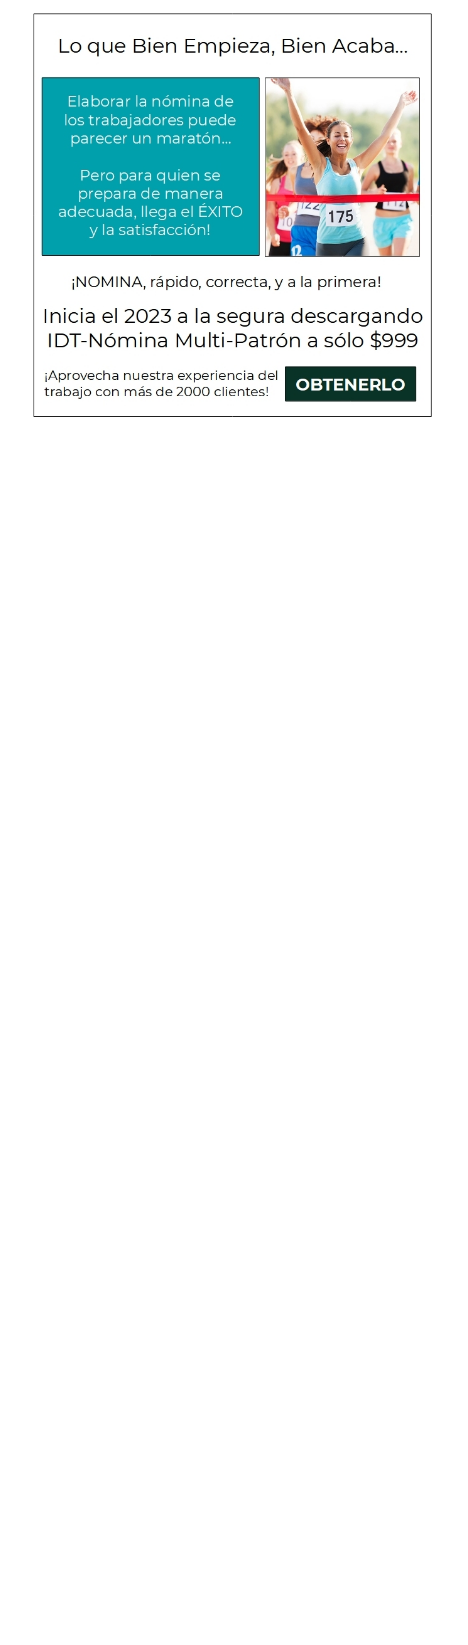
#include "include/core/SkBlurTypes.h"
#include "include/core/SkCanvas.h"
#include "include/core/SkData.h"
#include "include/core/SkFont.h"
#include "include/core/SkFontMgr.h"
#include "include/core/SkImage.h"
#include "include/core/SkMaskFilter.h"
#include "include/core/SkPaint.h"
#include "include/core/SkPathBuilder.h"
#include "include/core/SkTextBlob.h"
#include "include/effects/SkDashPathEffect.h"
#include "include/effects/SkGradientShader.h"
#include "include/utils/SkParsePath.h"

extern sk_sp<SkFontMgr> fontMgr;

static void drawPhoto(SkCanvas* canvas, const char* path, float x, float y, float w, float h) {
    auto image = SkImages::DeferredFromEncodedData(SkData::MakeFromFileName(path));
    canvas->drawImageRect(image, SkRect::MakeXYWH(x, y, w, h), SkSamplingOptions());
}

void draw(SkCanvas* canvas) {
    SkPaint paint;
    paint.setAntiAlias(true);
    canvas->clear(0xFFFFFFFF);
    drawPhoto(canvas, "assets/img1.png", 33, 13, 399, 404);
}
